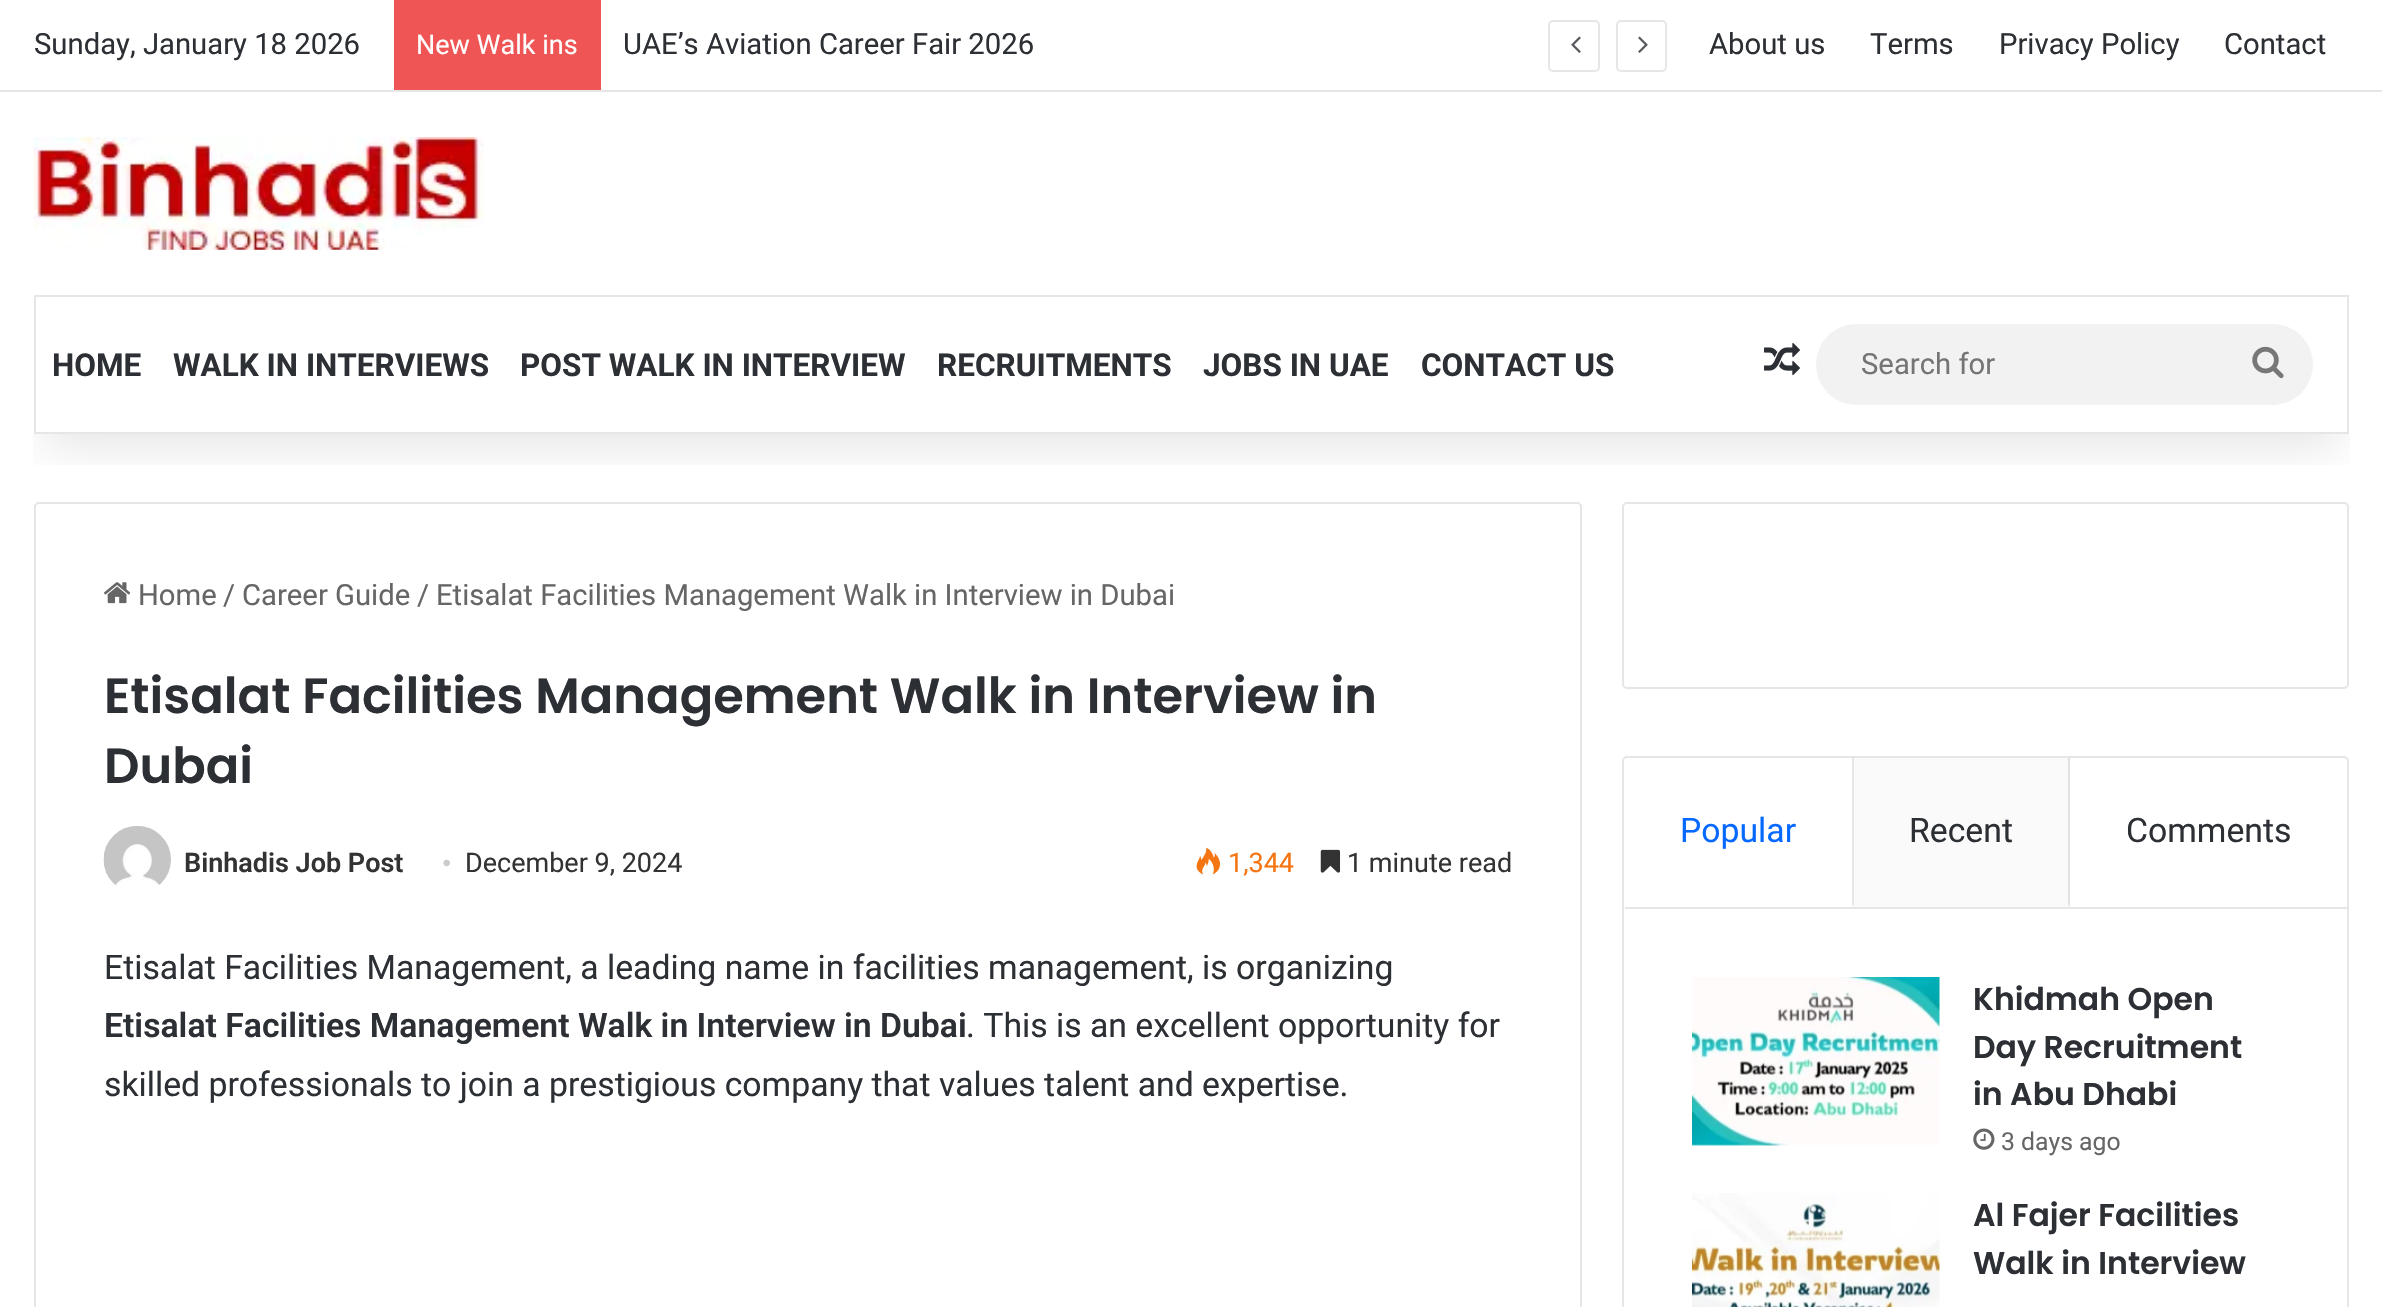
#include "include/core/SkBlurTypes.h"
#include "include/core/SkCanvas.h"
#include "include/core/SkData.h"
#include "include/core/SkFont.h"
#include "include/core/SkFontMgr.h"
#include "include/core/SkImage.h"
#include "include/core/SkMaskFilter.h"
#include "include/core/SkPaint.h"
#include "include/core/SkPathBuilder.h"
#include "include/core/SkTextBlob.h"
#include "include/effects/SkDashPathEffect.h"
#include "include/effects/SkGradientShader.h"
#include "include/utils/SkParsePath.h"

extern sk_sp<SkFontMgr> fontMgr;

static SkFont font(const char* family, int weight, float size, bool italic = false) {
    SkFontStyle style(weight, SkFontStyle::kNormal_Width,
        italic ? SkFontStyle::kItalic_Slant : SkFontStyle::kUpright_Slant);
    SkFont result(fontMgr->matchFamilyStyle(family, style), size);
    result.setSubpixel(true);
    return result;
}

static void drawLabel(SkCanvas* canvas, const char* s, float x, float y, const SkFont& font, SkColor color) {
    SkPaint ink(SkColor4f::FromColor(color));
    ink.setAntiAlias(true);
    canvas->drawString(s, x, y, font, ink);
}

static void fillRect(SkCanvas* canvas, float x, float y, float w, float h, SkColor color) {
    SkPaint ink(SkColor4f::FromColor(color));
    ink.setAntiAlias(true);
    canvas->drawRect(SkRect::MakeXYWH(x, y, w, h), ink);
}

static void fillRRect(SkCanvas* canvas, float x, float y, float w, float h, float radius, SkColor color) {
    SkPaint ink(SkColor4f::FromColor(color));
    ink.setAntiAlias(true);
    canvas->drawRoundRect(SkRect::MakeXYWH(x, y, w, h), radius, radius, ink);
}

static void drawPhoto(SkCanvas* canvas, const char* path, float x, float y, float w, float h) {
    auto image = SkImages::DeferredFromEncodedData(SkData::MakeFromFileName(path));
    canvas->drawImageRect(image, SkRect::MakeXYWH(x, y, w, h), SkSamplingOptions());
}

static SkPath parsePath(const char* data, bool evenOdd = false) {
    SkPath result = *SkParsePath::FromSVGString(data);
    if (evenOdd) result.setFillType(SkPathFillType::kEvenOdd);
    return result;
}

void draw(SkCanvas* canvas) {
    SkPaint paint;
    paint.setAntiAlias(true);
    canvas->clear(0xFFFFFFFF);
    paint.setStroke(true);
    paint.setStrokeWidth(2);
    paint.setColor(0xFFE6E6E6);
    canvas->drawRoundRect(SkRect::MakeXYWH(35, 503, 1546, 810), 4, 4, paint);
    canvas->drawRoundRect(SkRect::MakeXYWH(1623, 503, 725, 185), 4, 4, paint);
    canvas->save();
    canvas->clipRect(SkRect::MakeXYWH(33, 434, 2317, 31));
    paint.setStroke(false);
    paint.setColor(0x1A000000);
    paint.setMaskFilter(SkMaskFilter::MakeBlur(kNormal_SkBlurStyle, 22.5f));
    canvas->drawRect(SkRect::MakeXYWH(45, 101, 2293, 345), paint);
    paint.setMaskFilter(nullptr);
    canvas->restore();
    fillRect(canvas, 0, 90, 2382, 2, 0xFFE6E6E6);
    SkFont font1 = font("Roboto", 400, 29.25f);
    drawLabel(canvas, "Sunday, January 18 2026", 34, 54, font1, 0xFF2C2F34);
    fillRect(canvas, 394, 0, 207, 90, 0xFFF05555);
    SkFont font2 = font("Roboto", 400, 27);
    drawLabel(canvas, "New Walk ins", 416, 54, font2, 0xFFFFFFFF);
    drawLabel(canvas, "UAE’s Aviation Career Fair 2026", 623, 54, font1, 0xFF2C2F34);
    paint.setStroke(true);
    paint.setColor(0xFFE6E6E6);
    canvas->drawRoundRect(SkRect::MakeXYWH(1549, 21, 50, 50), 4, 4, paint);
    drawPhoto(canvas, "assets/img1.png", 1571, 36, 10, 17);
    canvas->drawRoundRect(SkRect::MakeXYWH(1617, 21, 49, 50), 4, 4, paint);
    drawPhoto(canvas, "assets/img2.png", 1638, 36, 10, 17);
    drawLabel(canvas, "About us", 1709, 54, font1, 0xFF2C2F34);
    drawLabel(canvas, "Terms", 1870, 54, font1, 0xFF2C2F34);
    drawLabel(canvas, "Privacy Policy", 1999, 54, font1, 0xFF2C2F34);
    drawLabel(canvas, "Contact", 2224, 54, font1, 0xFF2C2F34);
    drawPhoto(canvas, "assets/img3.png", 33, 137, 451, 113);
    canvas->drawRect(SkRect::MakeXYWH(35, 296, 2313, 137), paint);
    SkFont font3 = font("Roboto", 700, 31.5f);
    drawLabel(canvas, "HOME", 52, 376, font3, 0xFF2C2F34);
    drawLabel(canvas, "WALK IN INTERVIEWS", 173, 376, font3, 0xFF2C2F34);
    drawLabel(canvas, "POST WALK IN INTERVIEW", 520, 376, font3, 0xFF2C2F34);
    drawLabel(canvas, "RECRUITMENTS", 937, 376, font3, 0xFF2C2F34);
    drawLabel(canvas, "JOBS IN UAE", 1203, 376, font3, 0xFF2C2F34);
    drawLabel(canvas, "CONTACT US", 1421, 376, font3, 0xFF2C2F34);
    drawPhoto(canvas, "assets/img4.png", 1764, 343, 36, 33);
    fillRRect(canvas, 1816, 324, 497, 81, 40.5f, 0xFFF2F2F2);
    drawLabel(canvas, "Search for", 1861, 374, font1, 0xFF757575);
    drawPhoto(canvas, "assets/img5.png", 2252, 346, 32, 33);
    drawPhoto(canvas, "assets/img6.png", 104, 582, 27, 22);
    drawLabel(canvas, "Home", 138, 605, font1, 0xFF666666);
    drawLabel(canvas, "/", 223, 605, font1, 0xFF666666);
    drawLabel(canvas, "Career Guide", 242, 605, font1, 0xFF666666);
    drawLabel(canvas, "/", 417, 605, font1, 0xFF666666);
    drawLabel(canvas, "Etisalat Facilities Management Walk in Interview in Dubai", 436, 605, font1, 0xFF666666);
    SkFont font4 = font("Poppins", 600, 49.5f);
    drawLabel(canvas, "Etisalat Facilities Management Walk in Interview in", 104, 713, font4, 0xFF2C2F34);
    drawLabel(canvas, "Dubai", 104, 783, font4, 0xFF2C2F34);
    drawPhoto(canvas, "assets/img7.png", 103, 826, 68, 59);
    SkFont font5 = font("Roboto", 600, 27);
    drawLabel(canvas, "Binhadis Job Post", 184, 872, font5, 0xFF333333);
    SkFont font6 = font("Liberation Serif", 400, 27);
    drawLabel(canvas, "•", 442, 872, font6, 0xFFCCCCCC);
    drawLabel(canvas, "December 9, 2024", 465, 872, font2, 0xFF333333);
    drawPhoto(canvas, "assets/img8.png", 1196, 847, 24, 28);
    drawLabel(canvas, "1,344", 1228, 872, font2, 0xFFF47512);
    drawPhoto(canvas, "assets/img9.png", 1320, 849, 21, 24);
    drawLabel(canvas, "1 minute read", 1347, 872, font2, 0xFF333333);
    SkFont font7 = font("Roboto", 400, 33.75f);
    drawLabel(canvas, "Etisalat Facilities Management, a leading name in facilities management, is organizing", 104, 979, font7, 0xFF2C2F34);
    SkFont font8 = font("Roboto", 600, 33.75f);
    drawLabel(canvas, "Etisalat Facilities Management Walk in Interview in Dubai", 104, 1037, font8, 0xFF2C2F34);
    drawLabel(canvas, ". This is an excellent opportunity for", 966, 1037, font7, 0xFF2C2F34);
    drawLabel(canvas, "skilled professionals to join a prestigious company that values talent and expertise.", 104, 1096, font7, 0xFF2C2F34);
    canvas->drawRoundRect(SkRect::MakeXYWH(1623, 757, 725, 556), 4, 4, paint);
    fillRect(canvas, 1625, 907, 722, 2, 0xFFE6E6E6);
    paint.setStroke(false);
    canvas->drawPath(parsePath("M1854 758V907L1852 904V758Z"), paint);
    drawLabel(canvas, "Popular", 1680, 842, font7, 0xFF0669FF);
    fillRect(canvas, 1854, 758, 216, 149, 0xFFFAFAFA);
    paint.setColor(0xFFE1E1E1);
    canvas->drawPath(parsePath("M2070 758V907L2068 904V758Z"), paint);
    drawLabel(canvas, "Recent", 1909, 842, font7, 0xFF2C2F34);
    drawLabel(canvas, "Comments", 2126, 842, font7, 0xFF2C2F34);
    drawPhoto(canvas, "assets/img10.png", 1692, 977, 248, 169);
    SkFont font9 = font("Poppins", 600, 31.5f);
    drawLabel(canvas, "Khidmah Open", 1973, 1010, font9, 0xFF2C2F34);
    drawLabel(canvas, "Day Recruitment", 1973, 1058, font9, 0xFF2C2F34);
    drawLabel(canvas, "in Abu Dhabi", 1973, 1105, font9, 0xFF2C2F34);
    drawPhoto(canvas, "assets/img11.png", 1973, 1128, 22, 22);
    SkFont font10 = font("Roboto", 400, 24.75f);
    drawLabel(canvas, "3 days ago", 2001, 1150, font10, 0xFF666666);
    drawPhoto(canvas, "assets/img12.png", 1692, 1193, 248, 114);
    drawLabel(canvas, "Al Fajer Facilities", 1973, 1226, font9, 0xFF2C2F34);
    drawLabel(canvas, "Walk in Interview", 1973, 1274, font9, 0xFF2C2F34);
}
